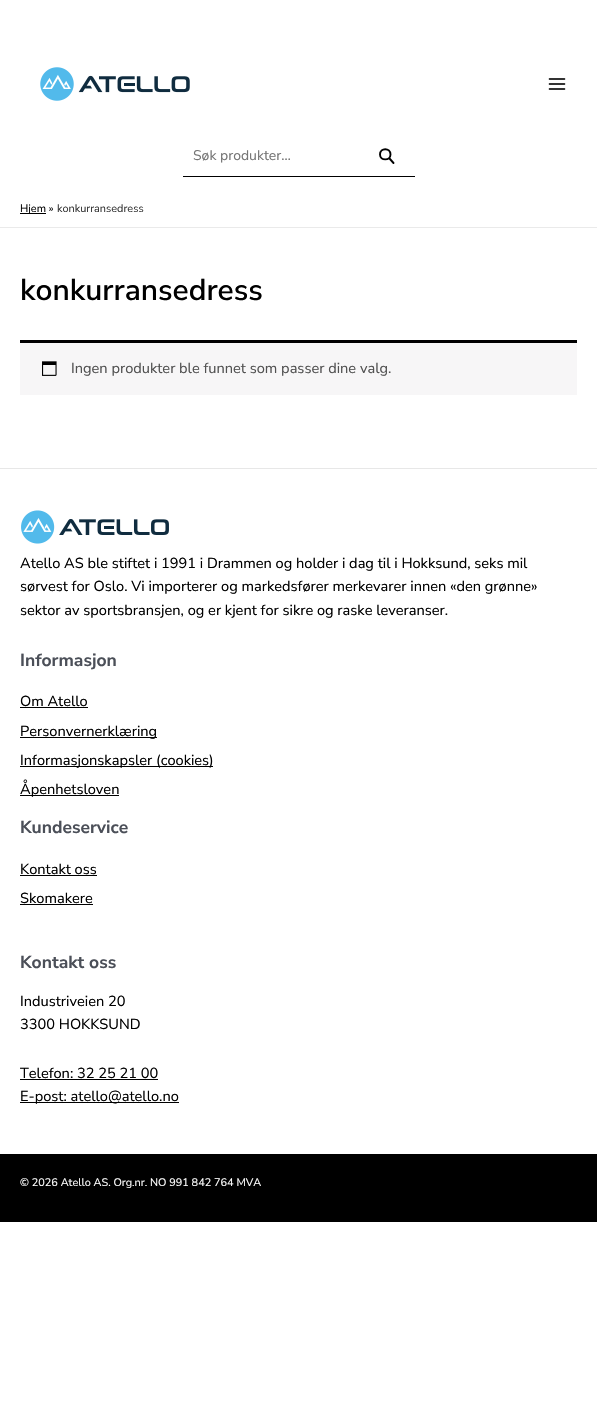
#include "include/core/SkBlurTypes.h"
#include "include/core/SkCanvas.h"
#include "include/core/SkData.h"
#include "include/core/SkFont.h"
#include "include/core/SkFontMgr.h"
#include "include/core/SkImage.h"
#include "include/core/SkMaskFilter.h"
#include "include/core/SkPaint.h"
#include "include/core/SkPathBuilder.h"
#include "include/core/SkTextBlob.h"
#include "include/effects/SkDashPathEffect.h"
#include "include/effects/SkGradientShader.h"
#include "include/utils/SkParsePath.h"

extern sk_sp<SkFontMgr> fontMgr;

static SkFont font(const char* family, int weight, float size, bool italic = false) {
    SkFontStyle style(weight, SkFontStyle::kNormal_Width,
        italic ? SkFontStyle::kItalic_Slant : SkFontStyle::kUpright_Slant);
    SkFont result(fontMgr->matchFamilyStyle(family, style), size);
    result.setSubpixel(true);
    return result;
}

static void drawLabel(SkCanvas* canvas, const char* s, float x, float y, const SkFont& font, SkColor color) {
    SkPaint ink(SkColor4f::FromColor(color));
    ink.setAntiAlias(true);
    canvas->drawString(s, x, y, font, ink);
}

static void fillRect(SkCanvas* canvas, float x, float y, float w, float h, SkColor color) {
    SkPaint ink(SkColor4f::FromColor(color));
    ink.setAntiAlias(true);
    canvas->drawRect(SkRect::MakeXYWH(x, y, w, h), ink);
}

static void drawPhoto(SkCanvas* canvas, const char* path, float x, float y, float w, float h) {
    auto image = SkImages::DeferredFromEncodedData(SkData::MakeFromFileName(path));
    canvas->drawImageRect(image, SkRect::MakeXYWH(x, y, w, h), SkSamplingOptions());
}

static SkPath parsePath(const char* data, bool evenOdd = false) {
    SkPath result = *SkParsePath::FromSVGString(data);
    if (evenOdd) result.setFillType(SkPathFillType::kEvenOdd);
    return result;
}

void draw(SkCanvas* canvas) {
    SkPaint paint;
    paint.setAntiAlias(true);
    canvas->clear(0xFFFFFFFF);
    drawPhoto(canvas, "assets/img1.png", 40, 67, 150, 34);
    drawPhoto(canvas, "assets/img2.png", 548, 78, 18, 12);
    fillRect(canvas, 183, 176, 232, 1, 0xFF000000);
    SkFont font1 = font("Nunito Sans", 400, 14);
    drawLabel(canvas, "Søk produkter…", 193, 160, font1, 0xFF757575);
    paint.setStroke(true);
    paint.setStrokeWidth(1.9f);
    paint.setStrokeCap(SkPaint::kRound_Cap);
    paint.setStrokeJoin(SkPaint::kRound_Join);
    paint.setColor(0xFF000000);
    canvas->drawPath(parsePath("M393.5 163L389.5 158.5M390.5 154.5C390.5 161 380 161 380 154.5C380 147.5 390.5 147.5 390.5 154.5Z"), paint);
    fillRect(canvas, 0, 227, 597, 1, 0xFFEAEAEA);
    fillRect(canvas, 20, 213, 26, 1, 0xFF000000);
    SkFont font2 = font("Nunito Sans", 400, 10.9f);
    drawLabel(canvas, "Hjem »", 20, 212, font2, 0xFF000000);
    drawLabel(canvas, "konkurransedress", 57, 212, font2, 0xFF333333);
    SkFont font3 = font("Nunito Sans", 600, 30);
    drawLabel(canvas, "konkurransedress", 20, 300, font3, 0xFF000000);
    fillRect(canvas, 20, 343, 557, 52, 0xFFF7F6F7);
    fillRect(canvas, 20, 340, 557, 3, 0xFF000000);
    drawPhoto(canvas, "assets/img3.png", 42, 361, 15, 15);
    SkFont font4 = font("Nunito Sans", 400, 14.6f);
    drawLabel(canvas, "Ingen produkter ble funnet som passer dine valg.", 71, 373, font4, 0xFF515151);
    fillRect(canvas, 0, 468, 597, 1, 0xFFE7E7E7);
    drawPhoto(canvas, "assets/img4.png", 21, 510, 148, 34);
    drawLabel(canvas, "Atello AS ble stiftet i 1991 i Drammen og holder i dag til i Hokksund, seks mil", 20, 568, font4, 0xFF000000);
    drawLabel(canvas, "sørvest for Oslo. Vi importerer og markedsfører merkevarer innen «den grønne»", 20, 591, font4, 0xFF000000);
    drawLabel(canvas, "sektor av sportsbransjen, og er kjent for sikre og raske leveranser.", 20, 615, font4, 0xFF000000);
    SkFont font5 = font("Nunito Sans", 700, 17.5f);
    drawLabel(canvas, "Informasjon", 20, 666, font5, 0xFF4B4F58);
    drawLabel(canvas, "Om Atello", 20, 706, font4, 0xFF000000);
    fillRect(canvas, 20, 707, 68, 1, 0xFF000000);
    fillRect(canvas, 20, 737, 137, 1, 0xFF000000);
    drawLabel(canvas, "Personvernerklæring", 20, 736, font4, 0xFF000000);
    fillRect(canvas, 20, 766, 193, 1, 0xFF000000);
    drawLabel(canvas, "Informasjonskapsler (cookies)", 20, 765, font4, 0xFF000000);
    fillRect(canvas, 20, 795, 99, 1, 0xFF000000);
    drawLabel(canvas, "Åpenhetsloven", 20, 794, font4, 0xFF000000);
    drawLabel(canvas, "Kundeservice", 20, 833, font5, 0xFF4B4F58);
    drawLabel(canvas, "Kontakt oss", 20, 874, font4, 0xFF000000);
    fillRect(canvas, 20, 875, 77, 1, 0xFF000000);
    drawLabel(canvas, "Skomakere", 20, 903, font4, 0xFF000000);
    fillRect(canvas, 20, 904, 73, 1, 0xFF000000);
    drawLabel(canvas, "Kontakt oss", 20, 968, font5, 0xFF4B4F58);
    drawLabel(canvas, "Industriveien 20", 20, 1006, font4, 0xFF000000);
    drawLabel(canvas, "3300 HOKKSUND", 20, 1029, font4, 0xFF000000);
    drawLabel(canvas, "Telefon: 32 25 21 00", 20, 1078, font4, 0xFF000000);
    fillRect(canvas, 20, 1079, 138, 1, 0xFF000000);
    fillRect(canvas, 20, 1102, 159, 1, 0xFF000000);
    drawLabel(canvas, "E-post: atello@atello.no", 20, 1101, font4, 0xFF000000);
    fillRect(canvas, 0, 1154, 597, 68, 0xFF000000);
    drawLabel(canvas, "© 2026 Atello AS. Org.nr. NO 991 842 764 MVA", 20, 1186, font2, 0xFFFFFFFF);
}
